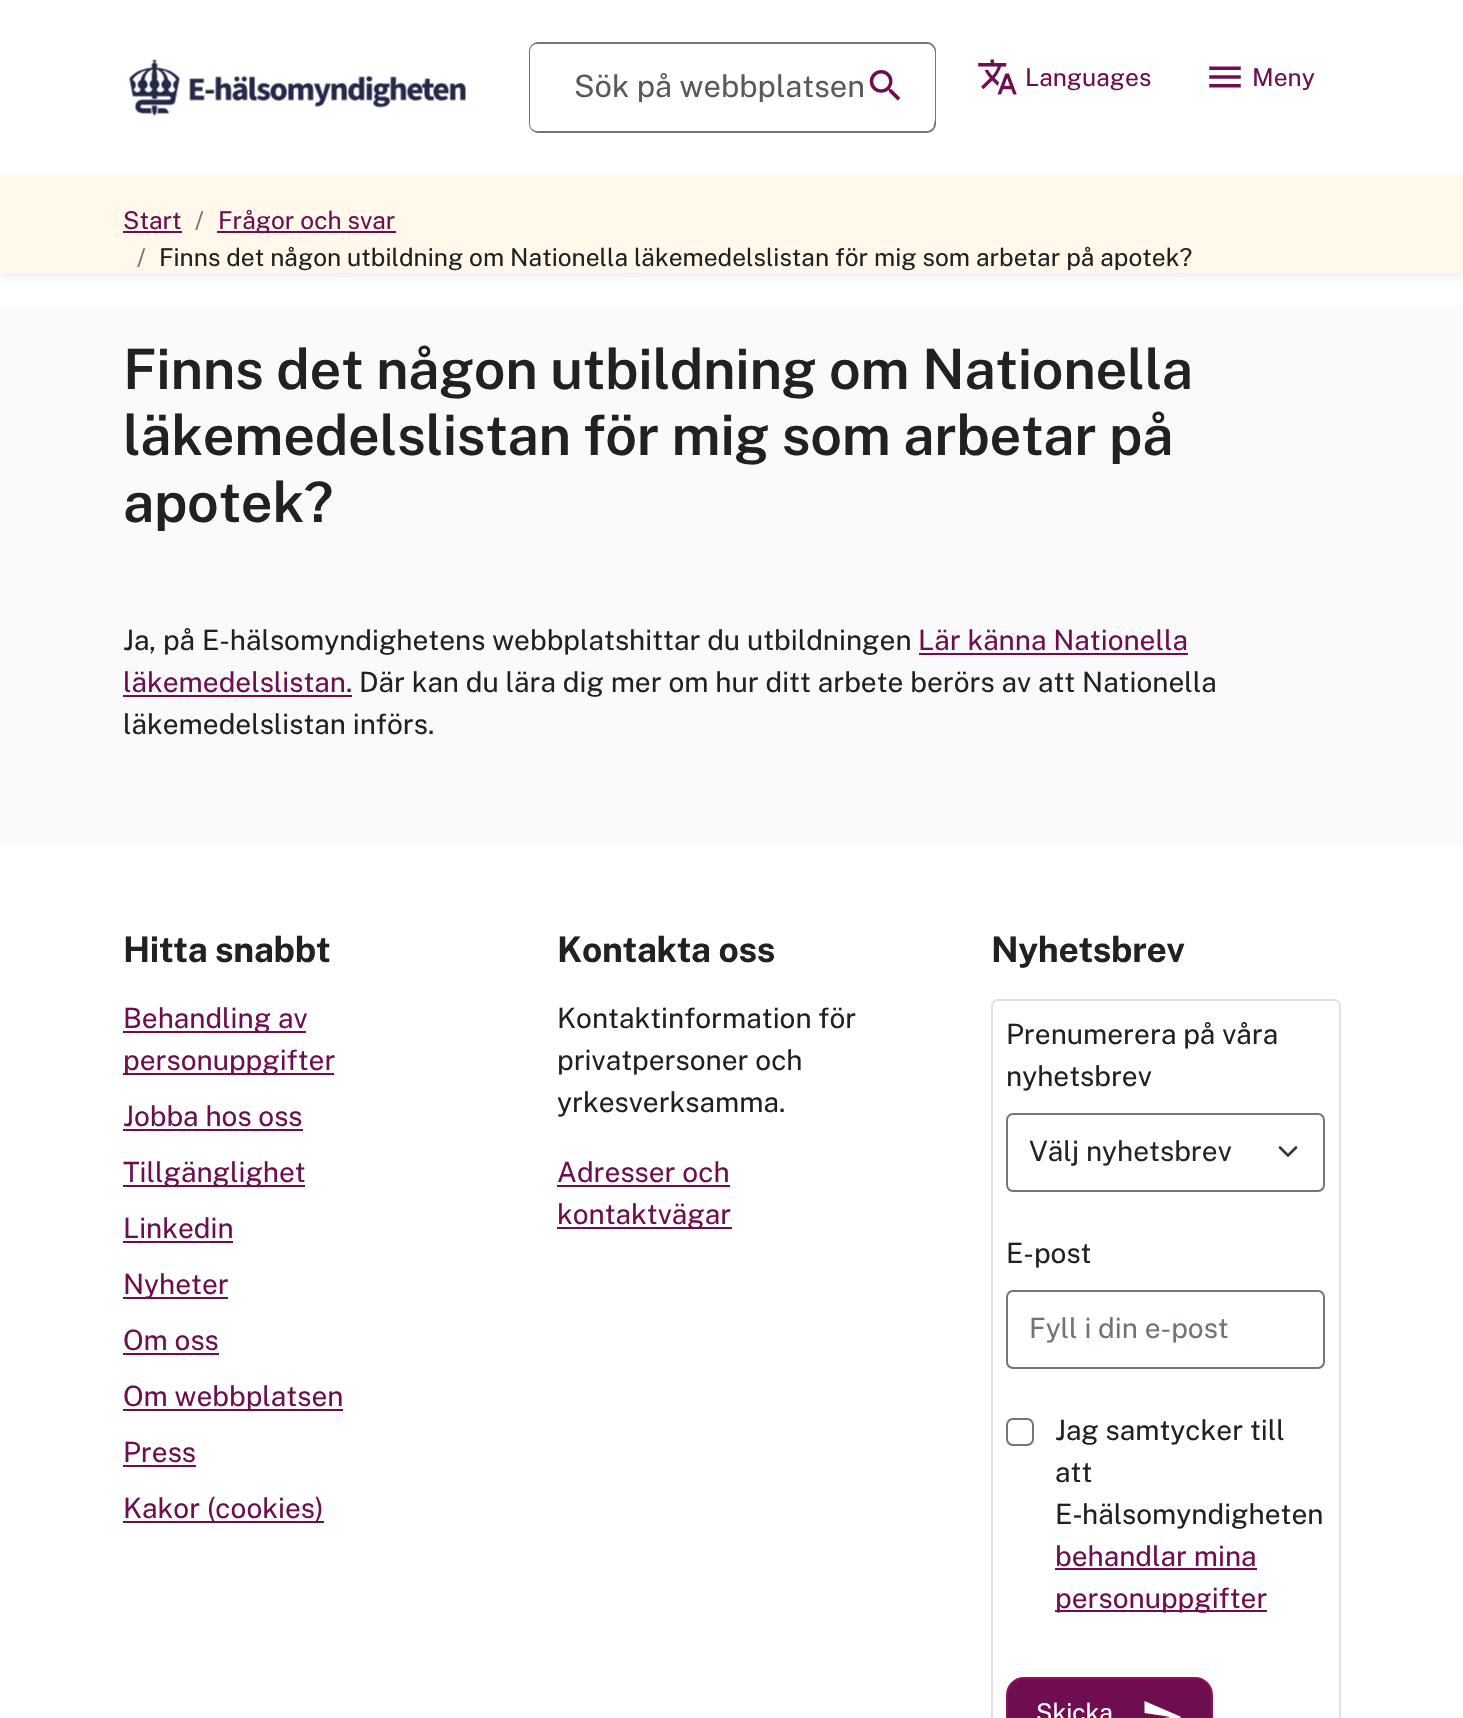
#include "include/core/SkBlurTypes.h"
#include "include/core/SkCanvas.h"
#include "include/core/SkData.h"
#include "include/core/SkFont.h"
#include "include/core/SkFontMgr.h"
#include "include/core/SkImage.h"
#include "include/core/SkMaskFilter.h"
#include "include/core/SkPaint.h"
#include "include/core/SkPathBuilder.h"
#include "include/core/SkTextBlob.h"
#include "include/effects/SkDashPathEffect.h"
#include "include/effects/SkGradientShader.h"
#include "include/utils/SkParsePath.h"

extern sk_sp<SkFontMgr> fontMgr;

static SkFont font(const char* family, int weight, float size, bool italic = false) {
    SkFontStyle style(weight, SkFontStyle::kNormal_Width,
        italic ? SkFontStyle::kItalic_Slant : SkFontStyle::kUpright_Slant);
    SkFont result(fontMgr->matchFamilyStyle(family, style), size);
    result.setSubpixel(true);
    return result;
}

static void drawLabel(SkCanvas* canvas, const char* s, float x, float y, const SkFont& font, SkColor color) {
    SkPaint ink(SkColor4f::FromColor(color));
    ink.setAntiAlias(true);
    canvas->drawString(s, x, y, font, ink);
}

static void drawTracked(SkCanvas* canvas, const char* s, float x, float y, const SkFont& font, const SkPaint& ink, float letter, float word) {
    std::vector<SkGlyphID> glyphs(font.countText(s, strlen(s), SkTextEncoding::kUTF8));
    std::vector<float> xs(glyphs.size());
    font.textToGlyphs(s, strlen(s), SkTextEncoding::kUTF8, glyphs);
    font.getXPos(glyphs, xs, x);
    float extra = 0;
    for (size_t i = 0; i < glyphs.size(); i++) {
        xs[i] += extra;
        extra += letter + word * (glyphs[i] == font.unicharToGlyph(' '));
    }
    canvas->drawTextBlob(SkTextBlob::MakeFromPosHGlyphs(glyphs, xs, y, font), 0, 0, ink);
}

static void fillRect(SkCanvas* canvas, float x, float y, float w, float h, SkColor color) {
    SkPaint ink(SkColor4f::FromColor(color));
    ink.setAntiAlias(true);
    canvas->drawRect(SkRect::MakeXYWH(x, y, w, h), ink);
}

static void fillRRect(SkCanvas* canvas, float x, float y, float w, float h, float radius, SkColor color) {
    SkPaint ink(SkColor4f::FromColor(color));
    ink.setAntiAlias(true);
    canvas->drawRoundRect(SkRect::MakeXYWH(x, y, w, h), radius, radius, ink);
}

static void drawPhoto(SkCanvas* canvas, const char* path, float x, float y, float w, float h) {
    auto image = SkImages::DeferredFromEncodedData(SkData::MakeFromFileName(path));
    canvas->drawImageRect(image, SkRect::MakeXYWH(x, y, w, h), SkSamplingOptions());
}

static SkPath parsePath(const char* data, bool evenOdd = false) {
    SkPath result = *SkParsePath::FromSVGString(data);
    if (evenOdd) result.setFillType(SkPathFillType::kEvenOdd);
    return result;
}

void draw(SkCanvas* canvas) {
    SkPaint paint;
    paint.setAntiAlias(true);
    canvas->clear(0xFFFAFAFA);
    fillRect(canvas, 0, 0, 1463, 305, 0xFFFFFFFF);
    drawPhoto(canvas, "assets/img1.png", 129, 59, 337, 57);
    paint.setStroke(true);
    paint.setStrokeWidth(2);
    paint.setColor(0xFF757575);
    canvas->drawRoundRect(SkRect::MakeXYWH(530, 43, 405, 89), 8, 8, paint);
    fillRRect(canvas, 530, 44, 307, 87, 7, 0xFFFFFFFF);
    paint.setStroke(false);
    paint.setColor(0xFFFFFFFF);
    canvas->drawPath(parsePath("M837 44H926C931 44 935 48 935 53V119C935 124 931 128 926 128H837Z"), paint);
    SkFont font1 = font("Public Sans", 400, 30.75f);
    drawLabel(canvas, "Sök på webbplatsen", 574, 97, font1, 0xFF595959);
    drawPhoto(canvas, "assets/img2.png", 869, 70, 32, 31);
    drawPhoto(canvas, "assets/img3.png", 978, 59, 39, 36);
    SkFont font2 = font("Public Sans", 400, 24.5f);
    drawLabel(canvas, "Languages", 1025, 86, font2, 0xFF6E0E50);
    drawPhoto(canvas, "assets/img4.png", 1209, 66, 32, 22);
    drawLabel(canvas, "Meny", 1252, 86, font2, 0xFF6E0E50);
    paint.setColor(0x12000000);
    paint.setMaskFilter(SkMaskFilter::MakeBlur(kNormal_SkBlurStyle, 3.5f));
    canvas->drawRect(SkRect::MakeXYWH(0, 179, 1463, 98), paint);
    paint.setMaskFilter(nullptr);
    fillRect(canvas, 0, 175, 1463, 98, 0xFFFFF8EB);
    drawLabel(canvas, "Start", 123, 229, font2, 0xFF6E0E50);
    fillRect(canvas, 123, 231, 59, 2, 0xFF6E0E50);
    drawLabel(canvas, "/", 195, 229, font2, 0xFF6C757D);
    fillRect(canvas, 217, 231, 179, 2, 0xFF6E0E50);
    drawLabel(canvas, "Frågor och svar", 218, 229, font2, 0xFF6E0E50);
    drawLabel(canvas, "/", 137, 266, font2, 0xFF6C757D);
    drawLabel(canvas, "Finns det någon utbildning om Nationella läkemedelslistan för mig som arbetar på apotek?", 159, 266, font2, 0xFF212121);
    SkFont font3 = font("Public Sans", 600, 55.7f);
    paint.setColor(0xFF212121);
    drawTracked(canvas, "Finns det någon utbildning om Nationella", 123, 389, font3, paint, -0.3f, 0);
    drawTracked(canvas, "läkemedelslistan för mig som arbetar på", 123, 455, font3, paint, -0.3f, 0);
    drawTracked(canvas, "apotek?", 123, 522, font3, paint, -0.3f, 0);
    SkFont font4 = font("Public Sans", 400, 28);
    drawLabel(canvas, "Ja, på E-hälsomyndighetens webbplatshittar du utbildningen", 123, 650, font4, 0xFF212121);
    drawLabel(canvas, "Lär känna Nationella", 918, 650, font4, 0xFF6E0E50);
    fillRect(canvas, 919, 653, 269, 2, 0xFF6E0E50);
    drawLabel(canvas, "läkemedelslistan.", 123, 692, font4, 0xFF6E0E50);
    fillRect(canvas, 123, 695, 229, 2, 0xFF6E0E50);
    drawLabel(canvas, "Där kan du lära dig mer om hur ditt arbete berörs av att Nationella", 359, 692, font4, 0xFF212121);
    drawLabel(canvas, "läkemedelslistan införs.", 123, 734, font4, 0xFF212121);
    fillRect(canvas, 0, 845, 1463, 873, 0xFFFFFFFF);
    SkFont font5 = font("Public Sans", 700, 35.25f);
    drawTracked(canvas, "Hitta snabbt", 123, 962, font5, paint, -0.3f, 0);
    fillRect(canvas, 123, 1031, 183, 2, 0xFF6E0E50);
    drawLabel(canvas, "Behandling av", 123, 1028, font4, 0xFF6E0E50);
    fillRect(canvas, 123, 1073, 211, 2, 0xFF6E0E50);
    drawLabel(canvas, "personuppgifter", 123, 1070, font4, 0xFF6E0E50);
    drawLabel(canvas, "Jobba hos oss", 123, 1126, font4, 0xFF6E0E50);
    fillRect(canvas, 123, 1129, 180, 2, 0xFF6E0E50);
    fillRect(canvas, 123, 1185, 182, 2, 0xFF6E0E50);
    drawLabel(canvas, "Tillgänglighet", 123, 1182, font4, 0xFF6E0E50);
    drawLabel(canvas, "Linkedin", 123, 1238, font4, 0xFF6E0E50);
    fillRect(canvas, 123, 1241, 110, 2, 0xFF6E0E50);
    fillRect(canvas, 123, 1297, 105, 2, 0xFF6E0E50);
    drawLabel(canvas, "Nyheter", 123, 1294, font4, 0xFF6E0E50);
    drawLabel(canvas, "Om oss", 123, 1350, font4, 0xFF6E0E50);
    fillRect(canvas, 123, 1353, 96, 2, 0xFF6E0E50);
    fillRect(canvas, 123, 1409, 220, 2, 0xFF6E0E50);
    drawLabel(canvas, "Om webbplatsen", 123, 1406, font4, 0xFF6E0E50);
    drawLabel(canvas, "Press", 123, 1462, font4, 0xFF6E0E50);
    fillRect(canvas, 123, 1465, 73, 2, 0xFF6E0E50);
    fillRect(canvas, 123, 1521, 201, 2, 0xFF6E0E50);
    drawLabel(canvas, "Kakor (cookies)", 123, 1518, font4, 0xFF6E0E50);
    drawTracked(canvas, "Kontakta oss", 557, 962, font5, paint, -0.3f, 0);
    drawLabel(canvas, "Kontaktinformation för", 557, 1028, font4, 0xFF212121);
    drawLabel(canvas, "privatpersoner och", 557, 1070, font4, 0xFF212121);
    drawLabel(canvas, "yrkesverksamma.", 557, 1112, font4, 0xFF212121);
    drawLabel(canvas, "Adresser och", 557, 1182, font4, 0xFF6E0E50);
    fillRect(canvas, 557, 1185, 173, 2, 0xFF6E0E50);
    fillRect(canvas, 557, 1227, 175, 2, 0xFF6E0E50);
    drawLabel(canvas, "kontaktvägar", 557, 1224, font4, 0xFF6E0E50);
    drawTracked(canvas, "Nyhetsbrev", 991, 962, font5, paint, -0.3f, 0);
    paint.setStroke(true);
    paint.setColor(0xFFDEE2E6);
    canvas->drawRoundRect(SkRect::MakeXYWH(992, 1000, 348, 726), 6, 6, paint);
    drawLabel(canvas, "Prenumerera på våra", 1006, 1044, font4, 0xFF212121);
    drawLabel(canvas, "nyhetsbrev", 1006, 1086, font4, 0xFF212121);
    paint.setStrokeWidth(2.6f);
    paint.setStrokeCap(SkPaint::kRound_Cap);
    paint.setStrokeJoin(SkPaint::kRound_Join);
    paint.setColor(0xFF343A40);
    canvas->drawPath(parsePath("M1280 1147.5L1288 1155.5L1296 1147.5"), paint);
    paint.setStrokeWidth(2);
    paint.setStrokeCap(SkPaint::kButt_Cap);
    paint.setStrokeJoin(SkPaint::kMiter_Join);
    paint.setColor(0xFF757575);
    canvas->drawRoundRect(SkRect::MakeXYWH(1007, 1114, 317, 77), 6, 6, paint);
    drawLabel(canvas, "Välj nyhetsbrev", 1029, 1161, font4, 0xFF212529);
    drawLabel(canvas, "E-post", 1006, 1263, font4, 0xFF212121);
    canvas->drawRoundRect(SkRect::MakeXYWH(1007, 1291, 317, 77), 6, 6, paint);
    drawLabel(canvas, "Fyll i din e-post", 1029, 1338, font4, 0xFF6C757D);
    canvas->drawRoundRect(SkRect::MakeXYWH(1007, 1419, 26, 26), 6, 6, paint);
    drawLabel(canvas, "Jag samtycker till", 1055, 1440, font4, 0xFF212121);
    drawLabel(canvas, "att", 1055, 1482, font4, 0xFF212121);
    drawLabel(canvas, "E", 1055, 1524, font4, 0xFF212121);
    SkFont font6 = font("Noto Sans", 400, 28);
    drawLabel(canvas, "‑", 1073, 1524, font6, 0xFF212121);
    drawLabel(canvas, "hälsomyndigheten", 1082, 1524, font4, 0xFF212121);
    drawLabel(canvas, "behandlar mina", 1055, 1566, font4, 0xFF6E0E50);
    fillRect(canvas, 1055, 1568, 202, 2, 0xFF6E0E50);
    fillRect(canvas, 1055, 1610, 212, 2, 0xFF6E0E50);
    drawLabel(canvas, "personuppgifter", 1055, 1608, font4, 0xFF6E0E50);
    paint.setStroke(false);
    paint.setColor(0xFF6E0E50);
    canvas->drawRoundRect(SkRect::MakeXYWH(1007, 1678, 205, 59), 17, 17, paint);
    paint.setStroke(true);
    paint.setColor(0xFF940E5C);
    canvas->drawRoundRect(SkRect::MakeXYWH(1007, 1678, 205, 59), 17, 17, paint);
    drawLabel(canvas, "Skicka", 1036, 1721, font2, 0xFFFFFFFF);
    paint.setStroke(false);
    paint.setColor(0xFFFFFFFF);
    canvas->drawPath(parsePath("M1144.5 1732.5V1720.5L1171 1717L1144.5 1713V1701L1181.5 1717Z"), paint);
}
